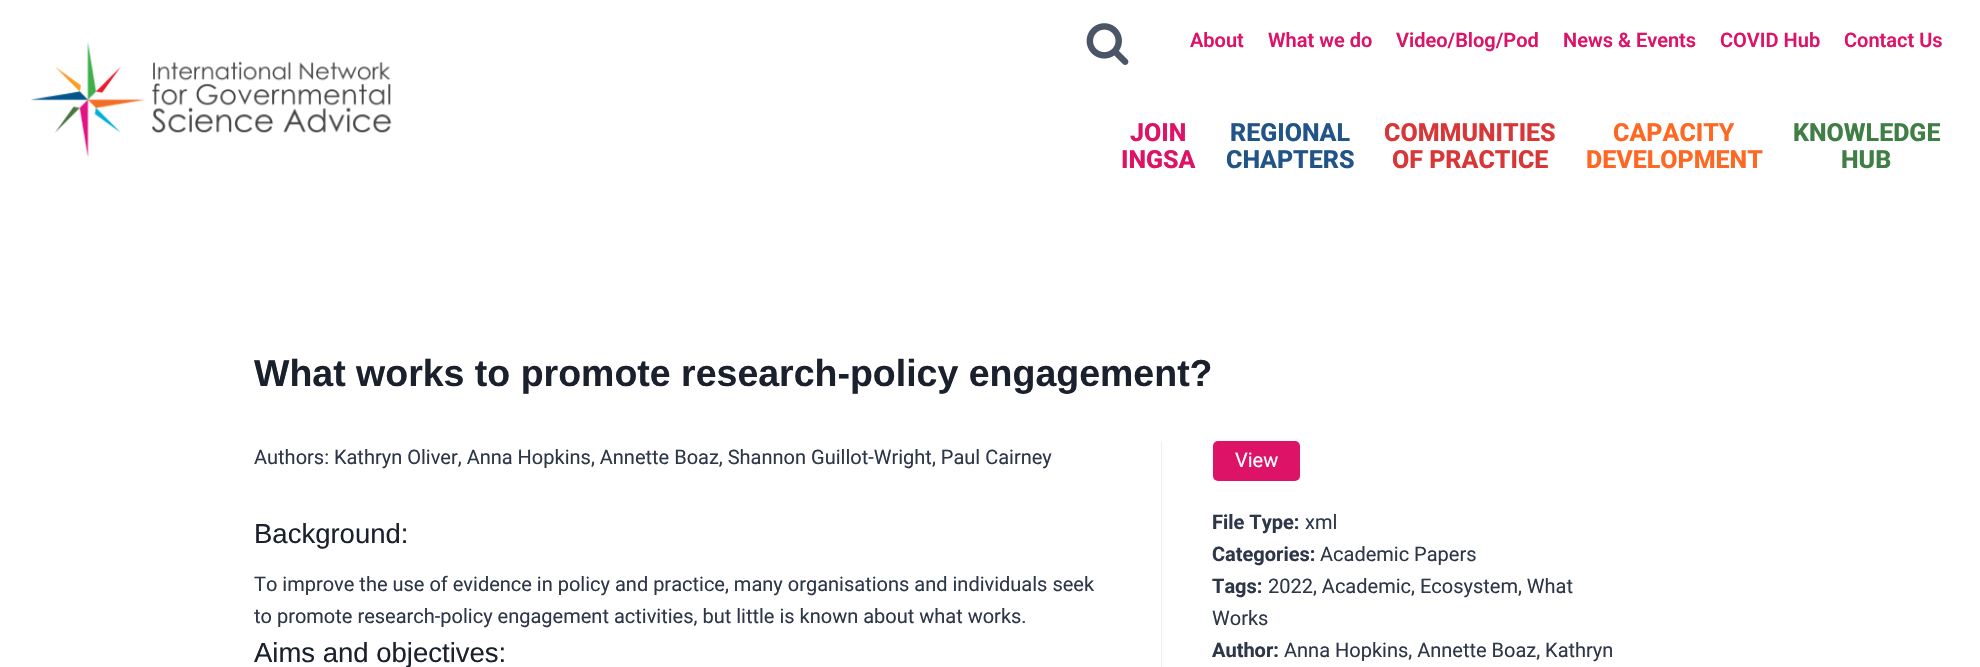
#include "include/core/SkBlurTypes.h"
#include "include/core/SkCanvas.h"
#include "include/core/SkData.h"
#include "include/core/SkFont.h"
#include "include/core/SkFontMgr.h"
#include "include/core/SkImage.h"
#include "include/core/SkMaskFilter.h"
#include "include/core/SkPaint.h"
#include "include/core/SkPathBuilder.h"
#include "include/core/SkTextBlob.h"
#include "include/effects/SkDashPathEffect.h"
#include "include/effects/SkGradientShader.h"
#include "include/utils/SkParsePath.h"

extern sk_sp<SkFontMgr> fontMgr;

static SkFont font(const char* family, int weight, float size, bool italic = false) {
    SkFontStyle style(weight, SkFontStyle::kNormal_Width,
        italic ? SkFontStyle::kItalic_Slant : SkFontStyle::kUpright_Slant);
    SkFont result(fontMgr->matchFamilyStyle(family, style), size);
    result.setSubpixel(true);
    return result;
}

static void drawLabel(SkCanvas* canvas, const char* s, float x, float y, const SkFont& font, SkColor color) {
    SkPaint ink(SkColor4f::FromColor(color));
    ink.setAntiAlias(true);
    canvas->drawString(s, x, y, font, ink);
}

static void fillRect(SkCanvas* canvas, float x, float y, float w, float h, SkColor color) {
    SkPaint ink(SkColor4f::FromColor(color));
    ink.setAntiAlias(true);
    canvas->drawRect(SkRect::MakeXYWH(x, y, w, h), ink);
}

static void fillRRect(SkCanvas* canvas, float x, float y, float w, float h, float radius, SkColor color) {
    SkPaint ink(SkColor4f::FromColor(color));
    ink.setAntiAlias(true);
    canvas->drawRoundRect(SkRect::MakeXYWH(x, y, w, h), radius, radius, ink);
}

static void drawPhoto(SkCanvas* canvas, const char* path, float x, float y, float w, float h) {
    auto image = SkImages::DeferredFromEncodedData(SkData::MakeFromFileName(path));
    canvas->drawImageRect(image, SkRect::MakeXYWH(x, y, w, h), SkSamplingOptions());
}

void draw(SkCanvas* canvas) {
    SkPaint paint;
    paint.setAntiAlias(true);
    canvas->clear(0xFFFFFFFF);
    drawPhoto(canvas, "assets/img1.png", 31, 42, 361, 115);
    drawPhoto(canvas, "assets/img2.png", 1086, 23, 43, 42);
    SkFont font1 = font("Roboto", 600, 20);
    drawLabel(canvas, "About", 1190, 47, font1, 0xFFDD1367);
    drawLabel(canvas, "What we do", 1268, 47, font1, 0xFFDD1367);
    drawLabel(canvas, "Video/Blog/Pod", 1396, 47, font1, 0xFFDD1367);
    drawLabel(canvas, "News & Events", 1563, 47, font1, 0xFFDD1367);
    drawLabel(canvas, "COVID Hub", 1720, 47, font1, 0xFFDD1367);
    drawLabel(canvas, "Contact Us", 1844, 47, font1, 0xFFDD1367);
    SkFont font2 = font("Roboto", 800, 25);
    drawLabel(canvas, "JOIN", 1130, 141, font2, 0xFFDD1367);
    drawLabel(canvas, "INGSA", 1121, 168, font2, 0xFFDD1367);
    drawLabel(canvas, "REGIONAL", 1230, 141, font2, 0xFF225587);
    drawLabel(canvas, "CHAPTERS", 1226, 168, font2, 0xFF225587);
    drawLabel(canvas, "COMMUNITIES", 1384, 141, font2, 0xFFD83738);
    drawLabel(canvas, "OF PRACTICE", 1392, 168, font2, 0xFFD83738);
    drawLabel(canvas, "CAPACITY", 1613, 141, font2, 0xFFFD6925);
    drawLabel(canvas, "DEVELOPMENT", 1586, 168, font2, 0xFFFD6925);
    drawLabel(canvas, "KNOWLEDGE", 1793, 141, font2, 0xFF3F7E44);
    drawLabel(canvas, "HUB", 1841, 168, font2, 0xFF3F7E44);
    SkFont font3 = font("Liberation Sans", 700, 37.5f);
    drawLabel(canvas, "What works to promote research-policy engagement?", 254, 386, font3, 0xFF1A202C);
    SkFont font4 = font("Roboto", 400, 20);
    drawLabel(canvas, "Authors: Kathryn Oliver, Anna Hopkins, Annette Boaz, Shannon Guillot-Wright, Paul Cairney", 254, 464, font4, 0xFF2D3748);
    SkFont font5 = font("Liberation Sans", 400, 27.5f);
    drawLabel(canvas, "Background:", 254, 543, font5, 0xFF1A202C);
    drawLabel(canvas, "To improve the use of evidence in policy and practice, many organisations and individuals seek", 254, 591, font4, 0xFF2D3748);
    drawLabel(canvas, "to promote research-policy engagement activities, but little is known about what works.", 254, 623, font4, 0xFF2D3748);
    drawLabel(canvas, "Aims and objectives:", 254, 662, font5, 0xFF1A202C);
    fillRect(canvas, 1161, 441, 1, 226, 0xFFEEEEEE);
    fillRRect(canvas, 1213, 441, 87, 40, 5, 0xFFDD1367);
    drawLabel(canvas, "View", 1235, 467, font4, 0xFFFFFFFF);
    SkFont font6 = font("Roboto", 700, 20);
    drawLabel(canvas, "File Type:", 1212, 529, font6, 0xFF2D3748);
    drawLabel(canvas, "xml", 1305, 529, font4, 0xFF2D3748);
    drawLabel(canvas, "Categories:", 1212, 561, font6, 0xFF2D3748);
    drawLabel(canvas, "Academic Papers", 1320, 561, font4, 0xFF2D3748);
    drawLabel(canvas, "Tags:", 1212, 593, font6, 0xFF2D3748);
    drawLabel(canvas, "2022, Academic, Ecosystem, What", 1268, 593, font4, 0xFF2D3748);
    drawLabel(canvas, "Works", 1212, 625, font4, 0xFF2D3748);
    drawLabel(canvas, "Author:", 1212, 657, font6, 0xFF2D3748);
    drawLabel(canvas, "Anna Hopkins, Annette Boaz, Kathryn", 1284, 657, font4, 0xFF2D3748);
}
